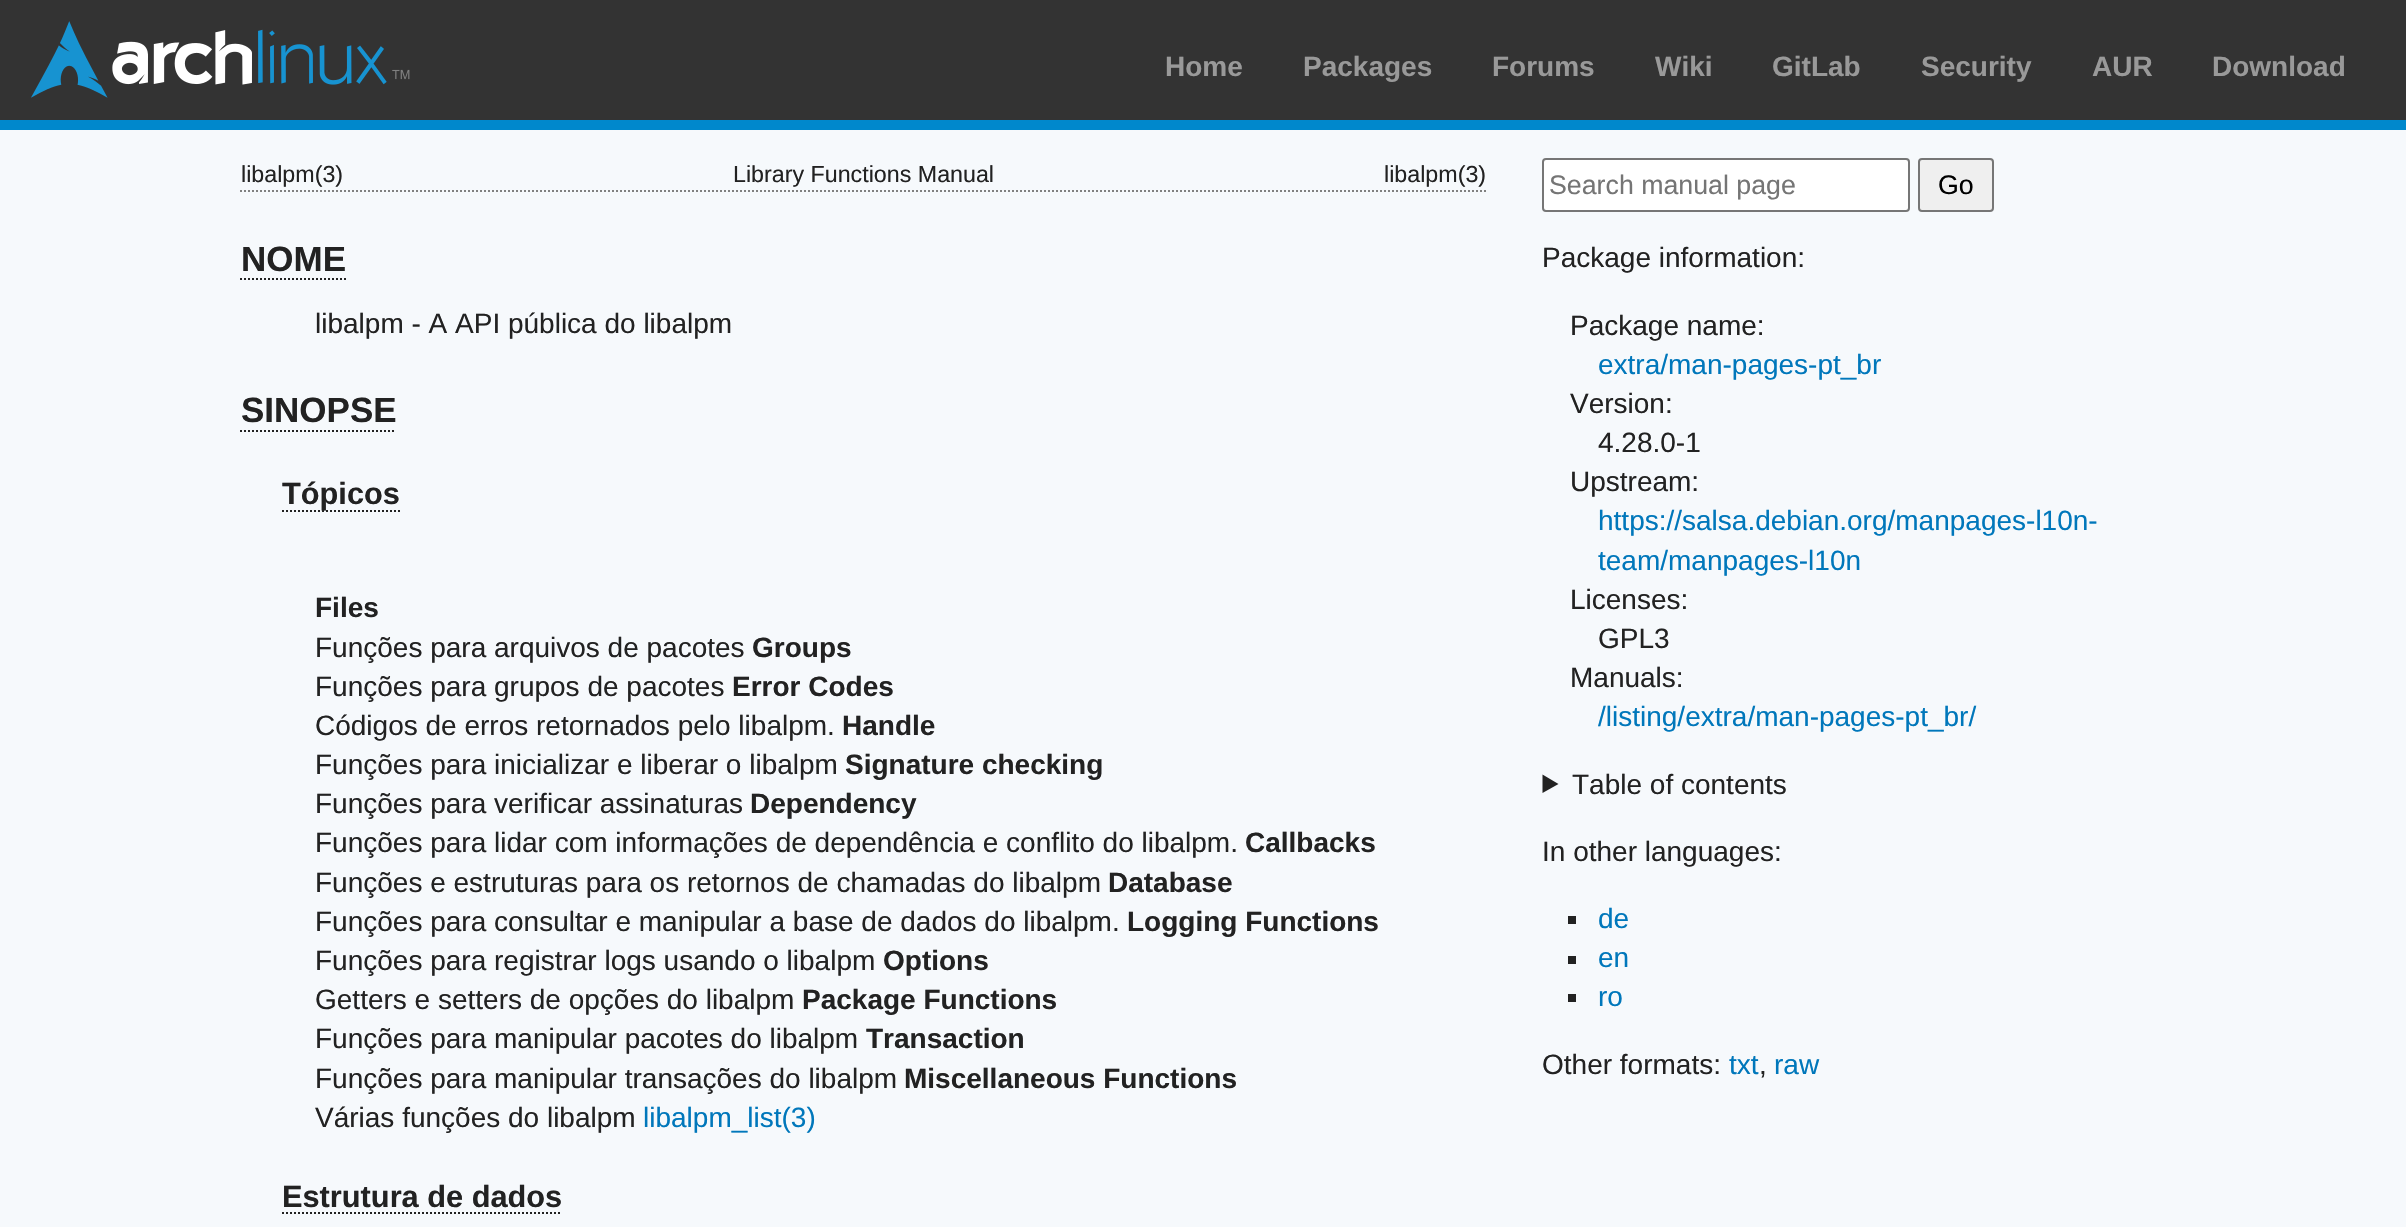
#include "include/core/SkBlurTypes.h"
#include "include/core/SkCanvas.h"
#include "include/core/SkData.h"
#include "include/core/SkFont.h"
#include "include/core/SkFontMgr.h"
#include "include/core/SkImage.h"
#include "include/core/SkMaskFilter.h"
#include "include/core/SkPaint.h"
#include "include/core/SkPathBuilder.h"
#include "include/core/SkTextBlob.h"
#include "include/effects/SkDashPathEffect.h"
#include "include/effects/SkGradientShader.h"
#include "include/utils/SkParsePath.h"

extern sk_sp<SkFontMgr> fontMgr;

static SkFont font(const char* family, int weight, float size, bool italic = false) {
    SkFontStyle style(weight, SkFontStyle::kNormal_Width,
        italic ? SkFontStyle::kItalic_Slant : SkFontStyle::kUpright_Slant);
    SkFont result(fontMgr->matchFamilyStyle(family, style), size);
    result.setSubpixel(true);
    return result;
}

static void drawLabel(SkCanvas* canvas, const char* s, float x, float y, const SkFont& font, SkColor color) {
    SkPaint ink(SkColor4f::FromColor(color));
    ink.setAntiAlias(true);
    canvas->drawString(s, x, y, font, ink);
}

static void fillRect(SkCanvas* canvas, float x, float y, float w, float h, SkColor color) {
    SkPaint ink(SkColor4f::FromColor(color));
    ink.setAntiAlias(true);
    canvas->drawRect(SkRect::MakeXYWH(x, y, w, h), ink);
}

static void drawPhoto(SkCanvas* canvas, const char* path, float x, float y, float w, float h) {
    auto image = SkImages::DeferredFromEncodedData(SkData::MakeFromFileName(path));
    canvas->drawImageRect(image, SkRect::MakeXYWH(x, y, w, h), SkSamplingOptions());
}

static SkPath parsePath(const char* data, bool evenOdd = false) {
    SkPath result = *SkParsePath::FromSVGString(data);
    if (evenOdd) result.setFillType(SkPathFillType::kEvenOdd);
    return result;
}

void draw(SkCanvas* canvas) {
    SkPaint paint;
    paint.setAntiAlias(true);
    canvas->clear(0xFFF6F9FC);
    fillRect(canvas, 0, 0, 2406, 120, 0xFF333333);
    fillRect(canvas, 0, 120, 2406, 10, 0xFF0088CC);
    drawPhoto(canvas, "assets/img1.png", 31, 21, 379, 77);
    SkFont font1 = font("Liberation Sans", 700, 28);
    drawLabel(canvas, "Home", 1165, 76, font1, 0xFF999999);
    drawLabel(canvas, "Packages", 1303, 76, font1, 0xFF999999);
    drawLabel(canvas, "Forums", 1492, 76, font1, 0xFF999999);
    drawLabel(canvas, "Wiki", 1655, 76, font1, 0xFF999999);
    drawLabel(canvas, "GitLab", 1772, 76, font1, 0xFF999999);
    drawLabel(canvas, "Security", 1921, 76, font1, 0xFF999999);
    drawLabel(canvas, "AUR", 2092, 76, font1, 0xFF999999);
    drawLabel(canvas, "Download", 2212, 76, font1, 0xFF999999);
    paint.setStroke(true);
    paint.setStrokeWidth(2);
    paint.setColor(0xFF808080);
    paint.setPathEffect(SkDashPathEffect::Make({{2, 2}}, 0));
    canvas->drawPath(parsePath("M240 191H1486"), paint);
    paint.setPathEffect(nullptr);
    SkFont font2 = font("Liberation Sans", 400, 23.25f);
    drawLabel(canvas, "libalpm(3)", 241, 182, font2, 0xFF222222);
    drawLabel(canvas, "Library Functions Manual", 733, 182, font2, 0xFF222222);
    drawLabel(canvas, "libalpm(3)", 1384, 182, font2, 0xFF222222);
    SkFont font3 = font("Liberation Sans", 700, 35);
    drawLabel(canvas, "NOME", 241, 271, font3, 0xFF222222);
    paint.setColor(0xFF222222);
    paint.setPathEffect(SkDashPathEffect::Make({{2, 2}}, 0));
    canvas->drawPath(parsePath("M240 279H346"), paint);
    paint.setPathEffect(nullptr);
    SkFont font4 = font("Liberation Sans", 400, 28);
    drawLabel(canvas, "libalpm - A API pública do libalpm", 315, 333, font4, 0xFF222222);
    drawLabel(canvas, "SINOPSE", 241, 422, font3, 0xFF222222);
    paint.setPathEffect(SkDashPathEffect::Make({{2, 2}}, 0));
    canvas->drawPath(parsePath("M240 431H396"), paint);
    paint.setPathEffect(nullptr);
    paint.setPathEffect(SkDashPathEffect::Make({{2, 2}}, 0));
    canvas->drawPath(parsePath("M282 511H400"), paint);
    paint.setPathEffect(nullptr);
    SkFont font5 = font("Liberation Sans", 700, 30.75f);
    drawLabel(canvas, "Tópicos", 282, 504, font5, 0xFF222222);
    drawLabel(canvas, "Files", 315, 617, font1, 0xFF222222);
    drawLabel(canvas, "Funções para arquivos de pacotes", 315, 657, font4, 0xFF222222);
    drawLabel(canvas, "Groups", 752, 657, font1, 0xFF222222);
    drawLabel(canvas, "Funções para grupos de pacotes", 315, 696, font4, 0xFF222222);
    drawLabel(canvas, "Error Codes", 732, 696, font1, 0xFF222222);
    drawLabel(canvas, "Códigos de erros retornados pelo libalpm.", 315, 735, font4, 0xFF222222);
    drawLabel(canvas, "Handle", 842, 735, font1, 0xFF222222);
    drawLabel(canvas, "Funções para inicializar e liberar o libalpm", 315, 774, font4, 0xFF222222);
    drawLabel(canvas, "Signature checking", 845, 774, font1, 0xFF222222);
    drawLabel(canvas, "Funções para verificar assinaturas", 315, 813, font4, 0xFF222222);
    drawLabel(canvas, "Dependency", 750, 813, font1, 0xFF222222);
    drawLabel(canvas, "Funções para lidar com informações de dependência e conflito do libalpm.", 315, 852, font4, 0xFF222222);
    drawLabel(canvas, "Callbacks", 1245, 852, font1, 0xFF222222);
    drawLabel(canvas, "Funções e estruturas para os retornos de chamadas do libalpm", 315, 892, font4, 0xFF222222);
    drawLabel(canvas, "Database", 1108, 892, font1, 0xFF222222);
    drawLabel(canvas, "Funções para consultar e manipular a base de dados do libalpm.", 315, 931, font4, 0xFF222222);
    drawLabel(canvas, "Logging Functions", 1127, 931, font1, 0xFF222222);
    drawLabel(canvas, "Funções para registrar logs usando o libalpm", 315, 970, font4, 0xFF222222);
    drawLabel(canvas, "Options", 883, 970, font1, 0xFF222222);
    drawLabel(canvas, "Getters e setters de opções do libalpm", 315, 1009, font4, 0xFF222222);
    drawLabel(canvas, "Package Functions", 802, 1009, font1, 0xFF222222);
    drawLabel(canvas, "Funções para manipular pacotes do libalpm", 315, 1048, font4, 0xFF222222);
    drawLabel(canvas, "Transaction", 866, 1048, font1, 0xFF222222);
    drawLabel(canvas, "Funções para manipular transações do libalpm", 315, 1088, font4, 0xFF222222);
    drawLabel(canvas, "Miscellaneous Functions", 904, 1088, font1, 0xFF222222);
    drawLabel(canvas, "Várias funções do libalpm", 315, 1127, font4, 0xFF222222);
    drawLabel(canvas, "libalpm_list(3)", 643, 1127, font4, 0xFF0077BB);
    drawLabel(canvas, "Estrutura de dados", 282, 1207, font5, 0xFF222222);
    paint.setPathEffect(SkDashPathEffect::Make({{2, 2}}, 0));
    canvas->drawPath(parsePath("M282 1213H562"), paint);
    paint.setPathEffect(nullptr);
    paint.setStroke(false);
    paint.setColor(0xFFFFFFFF);
    canvas->drawRoundRect(SkRect::MakeXYWH(1543, 159, 366, 52), 3, 3, paint);
    paint.setStroke(true);
    paint.setColor(0xFF767676);
    canvas->drawRoundRect(SkRect::MakeXYWH(1543, 159, 366, 52), 3, 3, paint);
    SkFont font6 = font("Liberation Sans", 400, 26.75f);
    drawLabel(canvas, "Search manual page", 1549, 194, font6, 0xFF757575);
    paint.setStroke(false);
    paint.setColor(0xFFEFEFEF);
    canvas->drawRoundRect(SkRect::MakeXYWH(1919, 159, 74, 52), 3, 3, paint);
    paint.setStroke(true);
    paint.setColor(0xFF767676);
    canvas->drawRoundRect(SkRect::MakeXYWH(1919, 159, 74, 52), 3, 3, paint);
    drawLabel(canvas, "Go", 1938, 194, font6, 0xFF000000);
    drawLabel(canvas, "Package information:", 1542, 267, font4, 0xFF222222);
    drawLabel(canvas, "Package name:", 1570, 335, font4, 0xFF222222);
    drawLabel(canvas, "extra/man-pages-pt_br", 1598, 374, font4, 0xFF0077BB);
    drawLabel(canvas, "Version:", 1570, 413, font4, 0xFF222222);
    drawLabel(canvas, "4.28.0-1", 1598, 452, font4, 0xFF222222);
    drawLabel(canvas, "Upstream:", 1570, 491, font4, 0xFF222222);
    drawLabel(canvas, "https://salsa.debian.org/manpages-l10n-", 1598, 530, font4, 0xFF0077BB);
    drawLabel(canvas, "team/manpages-l10n", 1598, 570, font4, 0xFF0077BB);
    drawLabel(canvas, "Licenses:", 1570, 609, font4, 0xFF222222);
    drawLabel(canvas, "GPL3", 1598, 648, font4, 0xFF222222);
    drawLabel(canvas, "Manuals:", 1570, 687, font4, 0xFF222222);
    drawLabel(canvas, "/listing/extra/man-pages-pt_br/", 1598, 726, font4, 0xFF0077BB);
    paint.setStroke(false);
    paint.setColor(0xFF222222);
    canvas->drawPath(parsePath("M1542.5 774.5L1558.5 784L1542.5 793Z"), paint);
    drawLabel(canvas, "Table of contents", 1572, 794, font4, 0xFF222222);
    drawLabel(canvas, "In other languages:", 1542, 861, font4, 0xFF222222);
    fillRect(canvas, 1568, 916, 8, 8, 0xFF222222);
    drawLabel(canvas, "de", 1598, 928, font4, 0xFF0077BB);
    fillRect(canvas, 1568, 956, 8, 8, 0xFF222222);
    drawLabel(canvas, "en", 1598, 967, font4, 0xFF0077BB);
    fillRect(canvas, 1568, 994, 8, 8, 0xFF222222);
    drawLabel(canvas, "ro", 1598, 1006, font4, 0xFF0077BB);
    drawLabel(canvas, "Other formats:", 1542, 1074, font4, 0xFF222222);
    drawLabel(canvas, "txt", 1729, 1074, font4, 0xFF0077BB);
    drawLabel(canvas, ",", 1759, 1074, font4, 0xFF222222);
    drawLabel(canvas, "raw", 1774, 1074, font4, 0xFF0077BB);
}
